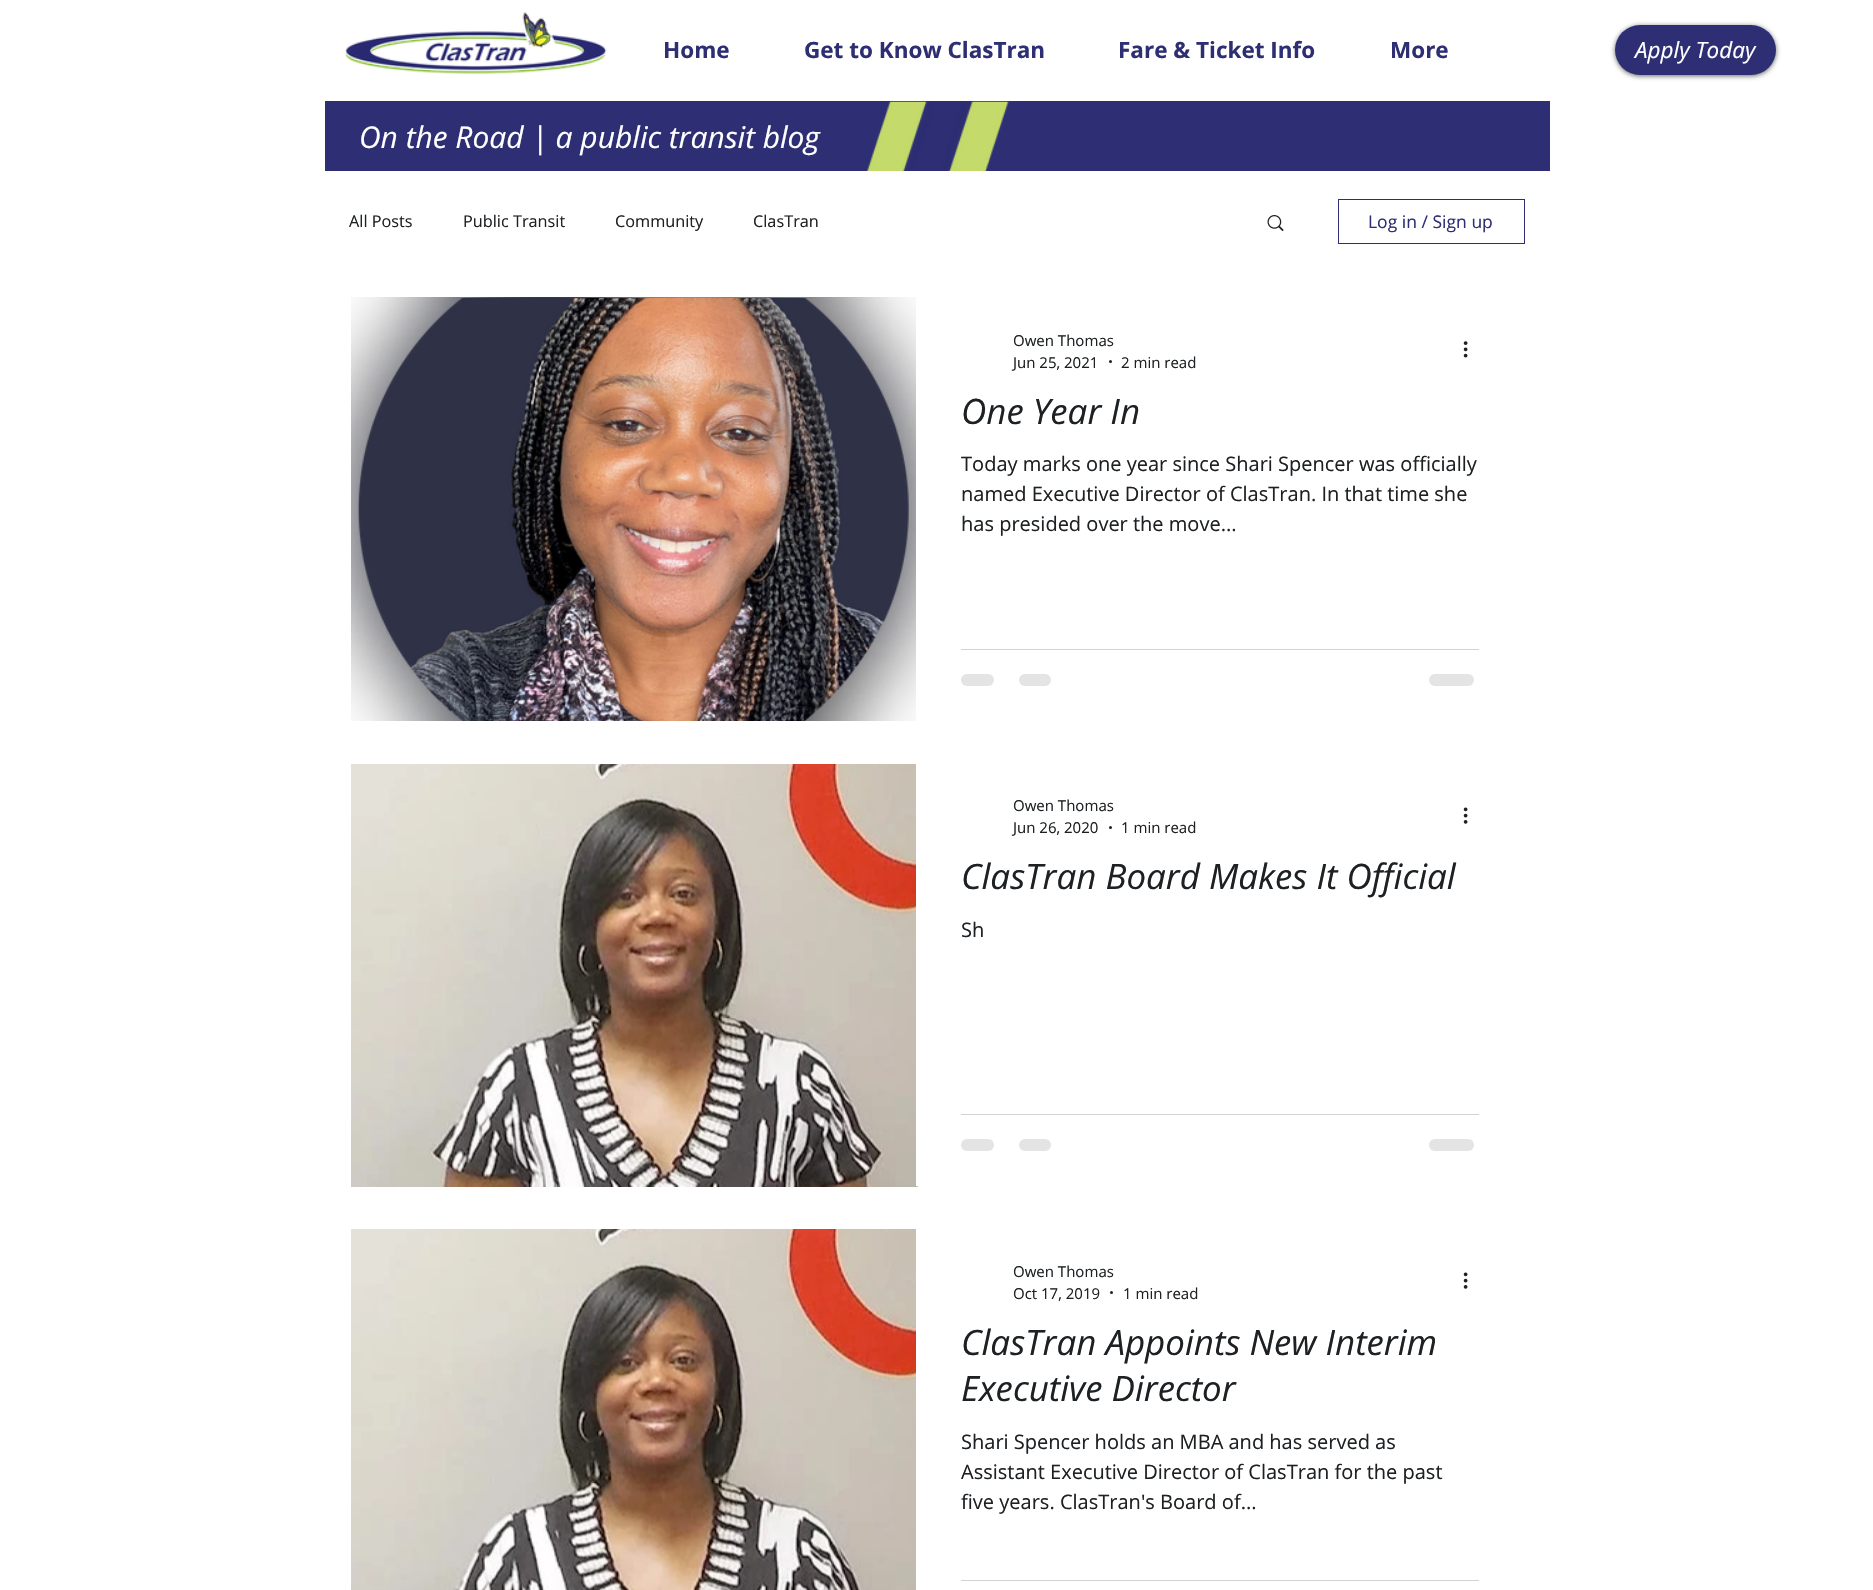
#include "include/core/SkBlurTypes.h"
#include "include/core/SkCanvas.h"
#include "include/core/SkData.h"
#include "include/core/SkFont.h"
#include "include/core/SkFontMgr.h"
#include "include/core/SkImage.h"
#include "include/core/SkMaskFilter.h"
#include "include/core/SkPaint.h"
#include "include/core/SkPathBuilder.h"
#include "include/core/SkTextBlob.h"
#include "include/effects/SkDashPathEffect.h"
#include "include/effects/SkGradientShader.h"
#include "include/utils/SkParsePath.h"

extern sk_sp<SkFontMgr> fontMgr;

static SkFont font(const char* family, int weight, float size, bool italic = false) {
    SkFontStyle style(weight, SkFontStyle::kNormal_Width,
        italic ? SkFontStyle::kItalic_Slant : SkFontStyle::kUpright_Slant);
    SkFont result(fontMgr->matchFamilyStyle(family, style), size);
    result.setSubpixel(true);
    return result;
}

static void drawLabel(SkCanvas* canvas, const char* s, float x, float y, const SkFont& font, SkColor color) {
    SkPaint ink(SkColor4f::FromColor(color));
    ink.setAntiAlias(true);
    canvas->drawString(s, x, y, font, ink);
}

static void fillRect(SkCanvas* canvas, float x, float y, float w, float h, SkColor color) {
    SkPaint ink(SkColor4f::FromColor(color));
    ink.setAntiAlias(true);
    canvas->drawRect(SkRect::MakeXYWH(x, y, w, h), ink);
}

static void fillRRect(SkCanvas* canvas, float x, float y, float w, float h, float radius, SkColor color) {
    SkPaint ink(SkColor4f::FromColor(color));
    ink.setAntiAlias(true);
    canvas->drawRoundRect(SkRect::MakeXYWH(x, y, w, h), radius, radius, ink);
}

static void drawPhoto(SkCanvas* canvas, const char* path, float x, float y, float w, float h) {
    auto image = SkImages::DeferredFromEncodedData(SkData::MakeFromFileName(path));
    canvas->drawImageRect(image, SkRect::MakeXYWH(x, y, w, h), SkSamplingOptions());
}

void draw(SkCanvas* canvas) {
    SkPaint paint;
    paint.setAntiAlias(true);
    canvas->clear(0xFFFFFFFF);
    drawPhoto(canvas, "assets/img1.png", 345, 12, 262, 62);
    SkFont font1 = font("Open Sans", 700, 22.5f);
    drawLabel(canvas, "Home", 663, 58, font1, 0xFF2D2E73);
    drawLabel(canvas, "Get to Know ClasTran", 804, 58, font1, 0xFF2D2E73);
    drawLabel(canvas, "Fare & Ticket Info", 1118, 58, font1, 0xFF2D2E73);
    drawLabel(canvas, "More", 1390, 58, font1, 0xFF2D2E73);
    paint.setColor(0x99000000);
    paint.setMaskFilter(SkMaskFilter::MakeBlur(kNormal_SkBlurStyle, 2.5f));
    canvas->drawRoundRect(SkRect::MakeXYWH(1615, 26, 161, 50), 25, 25, paint);
    paint.setMaskFilter(nullptr);
    fillRRect(canvas, 1615, 25, 161, 50, 25, 0xFF2D2E73);
    SkFont font2 = font("Open Sans", 400, 22.5f, true);
    drawLabel(canvas, "Apply Today", 1635, 58, font2, 0xFFFFFFFF);
    fillRect(canvas, 325, 101, 1225, 70, 0xFF2D2E73);
    SkFont font3 = font("Open Sans", 400, 30, true);
    drawLabel(canvas, "On the Road | a public transit blog", 359, 148, font3, 0xFFFFFFFF);
    drawPhoto(canvas, "assets/img2.png", 866, 101, 143, 70);
    SkFont font4 = font("Open Sans", 400, 16.25f);
    drawLabel(canvas, "All Posts", 349, 227, font4, 0xFF1D2123);
    drawLabel(canvas, "Public Transit", 463, 227, font4, 0xFF1D2123);
    drawLabel(canvas, "Community", 615, 227, font4, 0xFF1D2123);
    drawLabel(canvas, "ClasTran", 753, 227, font4, 0xFF1D2123);
    drawPhoto(canvas, "assets/img3.png", 1267, 215, 17, 17);
    paint.setStroke(true);
    paint.setStrokeWidth(1);
    paint.setColor(0xFF2D2E73);
    canvas->drawRect(SkRect::MakeXYWH(1338.5f, 199.5f, 186, 44), paint);
    SkFont font5 = font("Open Sans", 400, 17.5f);
    drawLabel(canvas, "Log in / Sign up", 1368, 228, font5, 0xFF2D2E73);
    drawPhoto(canvas, "assets/img4.png", 351, 297, 566, 424);
    drawPhoto(canvas, "assets/img5.png", 357, 298, 552, 423);
    fillRect(canvas, 916, 298, 1, 423, 0xFFFFFFFF);
    SkFont font6 = font("Open Sans", 400, 15);
    drawLabel(canvas, "Owen Thomas", 1013, 346, font6, 0xFF1D2123);
    drawLabel(canvas, "Jun 25, 2021", 1013, 368, font6, 0xFF1D2123);
    paint.setStroke(false);
    paint.setColor(0xFF1D2123);
    canvas->drawCircle(1110.5f, 361.5f, 1.5f, paint);
    drawLabel(canvas, "2 min read", 1121, 368, font6, 0xFF1D2123);
    drawPhoto(canvas, "assets/img6.png", 1463, 341, 5, 17);
    SkFont font7 = font("Open Sans", 400, 35, true);
    drawLabel(canvas, "One Year In", 961, 424, font7, 0xFF1D2123);
    SkFont font8 = font("Open Sans", 400, 20);
    drawLabel(canvas, "Today marks one year since Shari Spencer was officially", 961, 471, font8, 0xFF1D2123);
    drawLabel(canvas, "named Executive Director of ClasTran. In that time she", 961, 501, font8, 0xFF1D2123);
    drawLabel(canvas, "has presided over the move...", 961, 531, font8, 0xFF1D2123);
    fillRect(canvas, 961, 649, 518, 1, 0xFFD2D3D3);
    fillRRect(canvas, 961, 674, 33, 12, 6, 0xFFE4E4E5);
    fillRRect(canvas, 1019, 674, 32, 12, 6, 0xFFE4E4E5);
    fillRRect(canvas, 1429, 674, 45, 12, 6, 0xFFE4E4E5);
    drawPhoto(canvas, "assets/img8.png", 917, 1186, 1, 1);
    drawPhoto(canvas, "assets/img7.png", 351, 764, 567, 423);
    fillRect(canvas, 916, 764, 2, 422, 0xFFFFFFFF);
    drawLabel(canvas, "Owen Thomas", 1013, 811, font6, 0xFF1D2123);
    drawLabel(canvas, "Jun 26, 2020", 1013, 833, font6, 0xFF1D2123);
    canvas->drawCircle(1110.5f, 827.5f, 1.5f, paint);
    drawLabel(canvas, "1 min read", 1121, 833, font6, 0xFF1D2123);
    drawPhoto(canvas, "assets/img9.png", 1463, 807, 5, 17);
    drawLabel(canvas, "ClasTran Board Makes It Official", 961, 889, font7, 0xFF1D2123);
    drawLabel(canvas, "Sh", 961, 937, font8, 0xFF1D2123);
    fillRect(canvas, 961, 1114, 518, 1, 0xFFD2D3D3);
    fillRRect(canvas, 961, 1139, 33, 12, 6, 0xFFE4E4E5);
    fillRRect(canvas, 1019, 1139, 32, 12, 6, 0xFFE4E4E5);
    fillRRect(canvas, 1429, 1139, 45, 12, 6, 0xFFE4E4E5);
    drawPhoto(canvas, "assets/img10.png", 351, 1229, 565, 361);
    drawLabel(canvas, "Owen Thomas", 1013, 1277, font6, 0xFF1D2123);
    drawLabel(canvas, "Oct 17, 2019", 1013, 1299, font6, 0xFF1D2123);
    canvas->drawCircle(1111.5f, 1292.5f, 1.5f, paint);
    drawLabel(canvas, "1 min read", 1123, 1299, font6, 0xFF1D2123);
    drawPhoto(canvas, "assets/img9.png", 1463, 1272, 5, 17);
    drawLabel(canvas, "ClasTran Appoints New Interim", 961, 1355, font7, 0xFF1D2123);
    drawLabel(canvas, "Executive Director", 961, 1401, font7, 0xFF1D2123);
    drawLabel(canvas, "Shari Spencer holds an MBA and has served as", 961, 1449, font8, 0xFF1D2123);
    drawLabel(canvas, "Assistant Executive Director of ClasTran for the past", 961, 1479, font8, 0xFF1D2123);
    drawLabel(canvas, "five years. ClasTran's Board of...", 961, 1509, font8, 0xFF1D2123);
    fillRect(canvas, 961, 1580, 518, 1, 0xFFD2D3D3);
}
